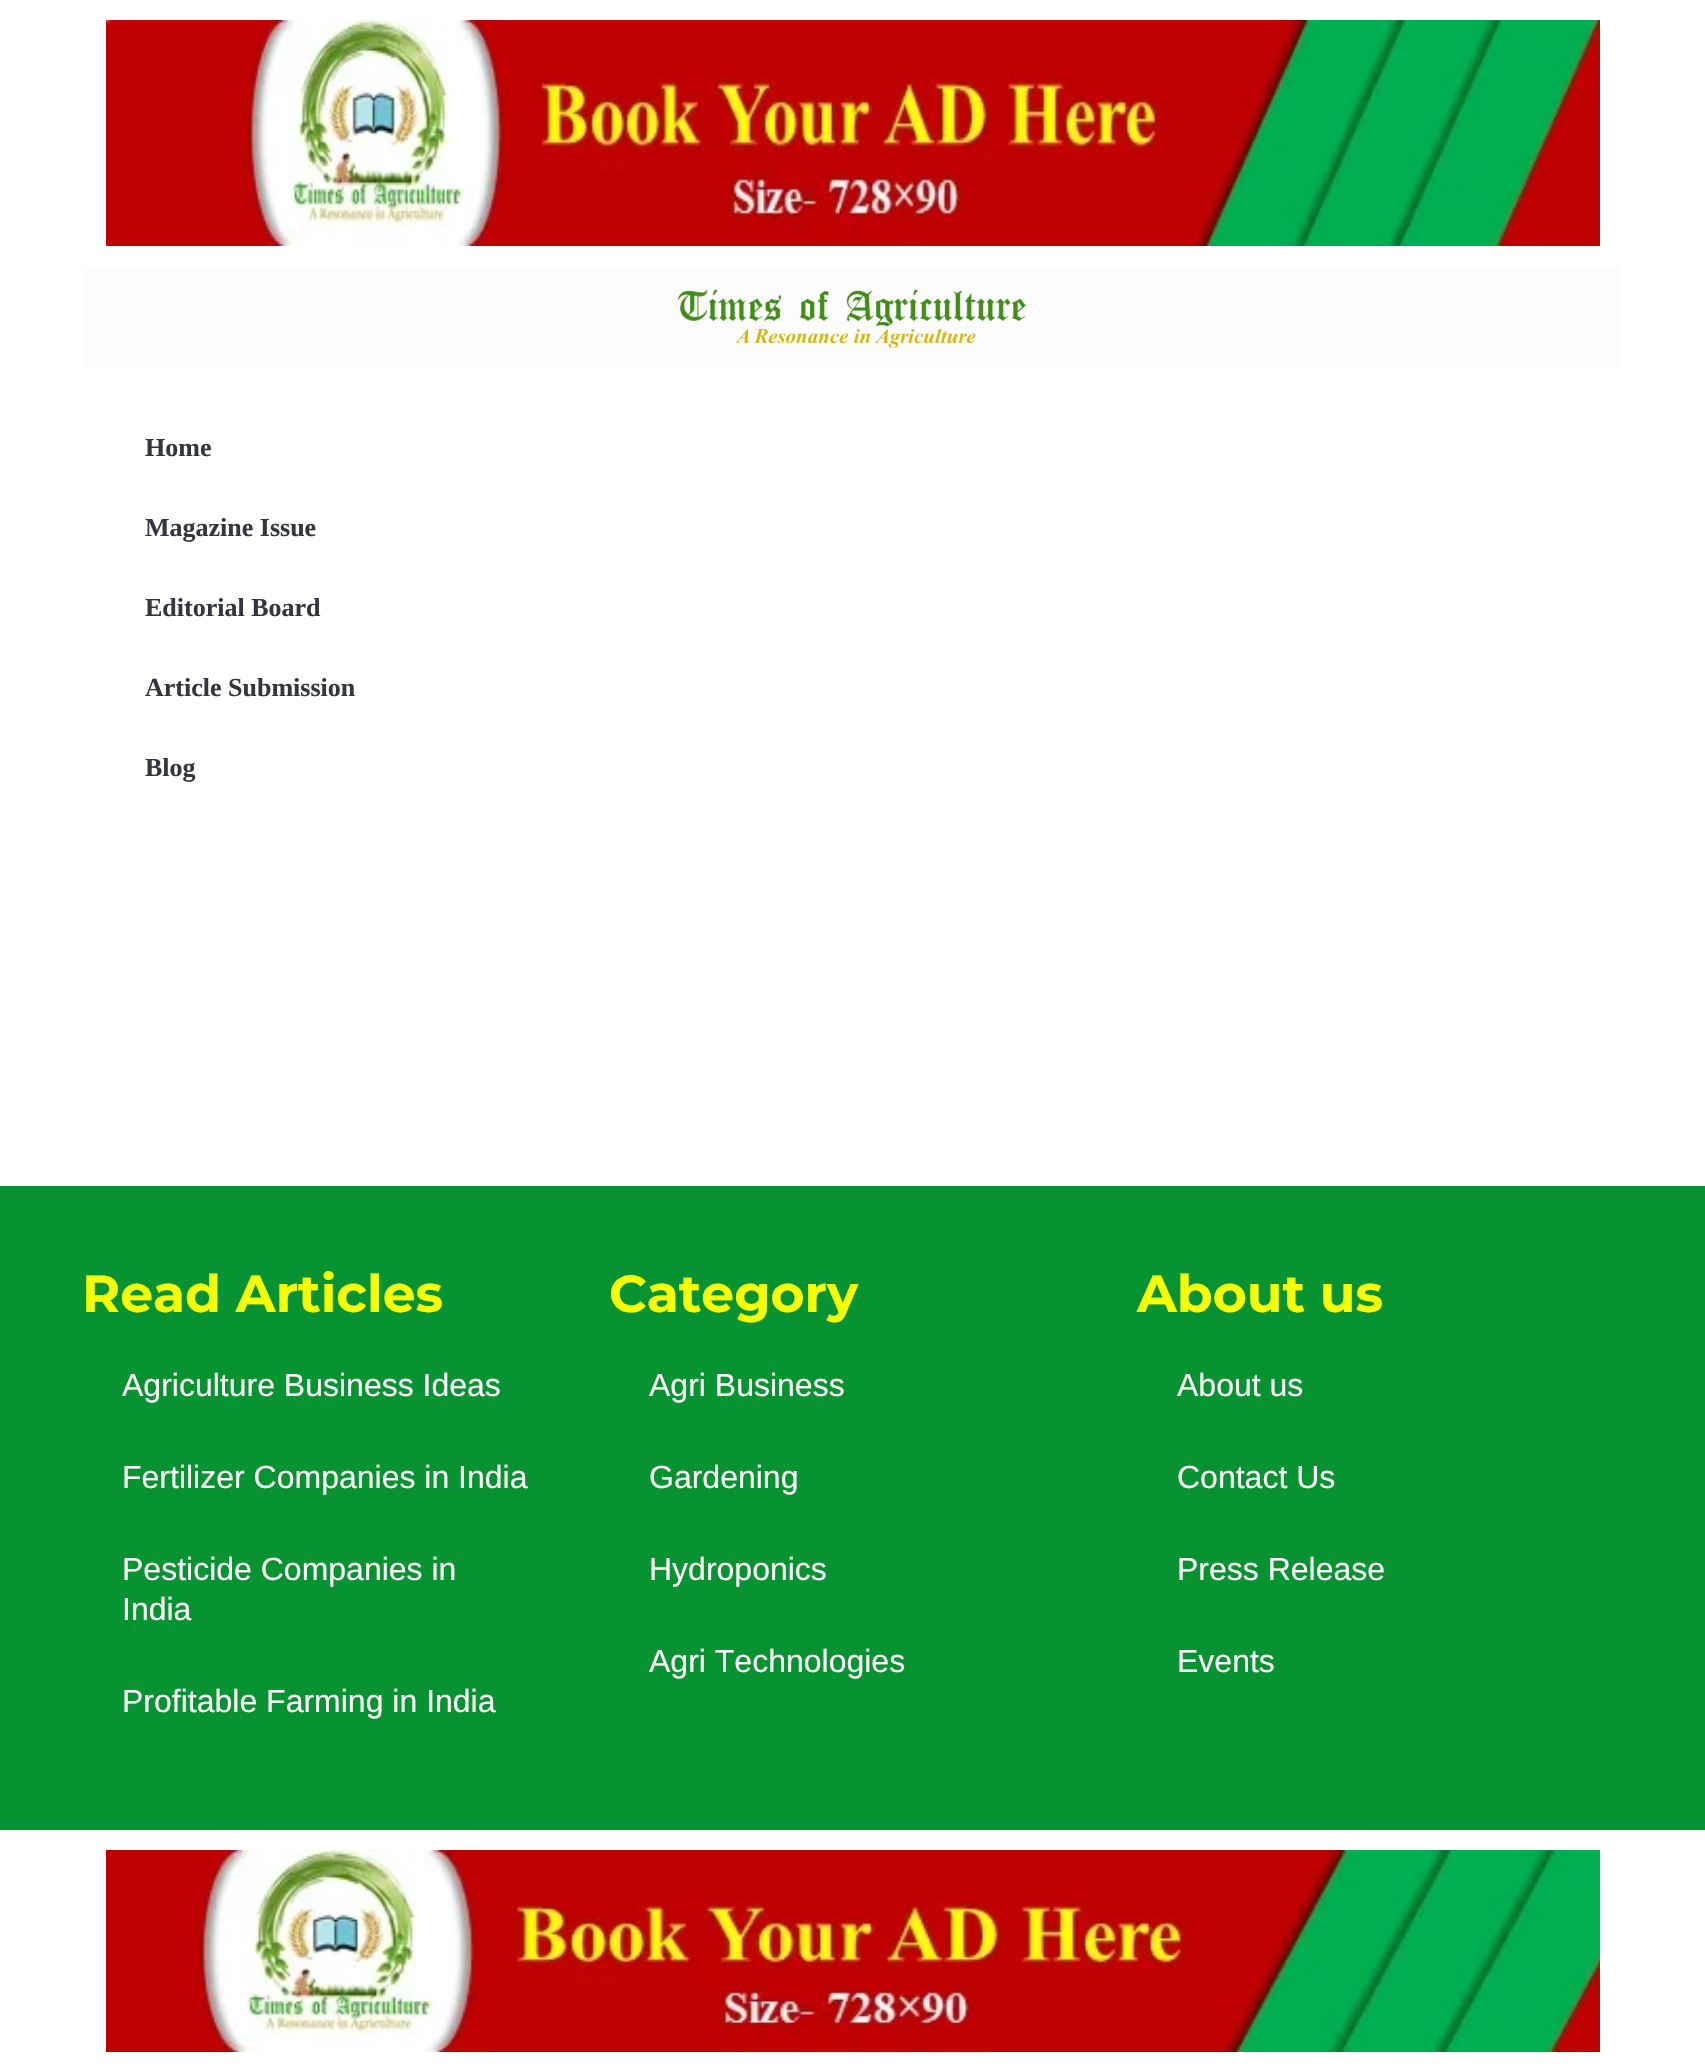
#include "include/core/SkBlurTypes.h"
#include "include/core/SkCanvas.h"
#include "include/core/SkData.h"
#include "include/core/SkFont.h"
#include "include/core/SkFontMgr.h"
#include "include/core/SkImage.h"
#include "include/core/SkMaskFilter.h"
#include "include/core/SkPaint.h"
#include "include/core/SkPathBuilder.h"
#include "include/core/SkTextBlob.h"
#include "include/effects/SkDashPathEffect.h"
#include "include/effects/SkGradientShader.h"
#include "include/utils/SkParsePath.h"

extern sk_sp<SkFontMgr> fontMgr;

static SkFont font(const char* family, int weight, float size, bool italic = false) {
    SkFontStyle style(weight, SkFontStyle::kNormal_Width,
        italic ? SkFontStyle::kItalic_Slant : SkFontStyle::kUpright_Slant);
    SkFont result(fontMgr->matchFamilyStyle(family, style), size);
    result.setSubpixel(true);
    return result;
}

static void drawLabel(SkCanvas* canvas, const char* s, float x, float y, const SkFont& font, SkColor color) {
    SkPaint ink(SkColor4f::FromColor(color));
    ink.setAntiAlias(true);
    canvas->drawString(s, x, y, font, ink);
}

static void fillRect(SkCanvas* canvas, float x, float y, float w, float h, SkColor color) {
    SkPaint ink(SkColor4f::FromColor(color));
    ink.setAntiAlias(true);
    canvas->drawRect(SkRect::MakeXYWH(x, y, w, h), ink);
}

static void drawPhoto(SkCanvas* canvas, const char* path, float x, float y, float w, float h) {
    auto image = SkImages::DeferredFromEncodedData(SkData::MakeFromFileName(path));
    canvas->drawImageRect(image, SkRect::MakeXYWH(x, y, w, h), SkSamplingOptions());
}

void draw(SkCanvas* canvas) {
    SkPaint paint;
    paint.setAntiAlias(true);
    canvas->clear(0xFFFFFFFF);
    drawPhoto(canvas, "assets/img1.png", 106, 20, 1494, 226);
    fillRect(canvas, 86, 266, 1534, 102, 0xFFFCFCFC);
    drawPhoto(canvas, "assets/img2.png", 677, 289, 349, 59);
    SkFont font1 = font("Liberation Serif", 700, 26);
    drawLabel(canvas, "Home", 145, 456, font1, 0xFF33373D);
    drawLabel(canvas, "Magazine Issue", 145, 536, font1, 0xFF33373D);
    drawLabel(canvas, "Editorial Board", 145, 616, font1, 0xFF33373D);
    drawLabel(canvas, "Article Submission", 145, 696, font1, 0xFF33373D);
    drawLabel(canvas, "Blog", 145, 776, font1, 0xFF33373D);
    fillRect(canvas, 0, 1186, 1705, 644, 0xFF079332);
    SkFont font2 = font("Montserrat", 700, 52);
    drawLabel(canvas, "Read Articles", 82, 1312, font2, 0xFFF7FF04);
    SkFont font3 = font("Liberation Sans", 400, 32);
    drawLabel(canvas, "Agriculture Business Ideas", 122, 1396, font3, 0xFFFFFAFA);
    drawLabel(canvas, "Fertilizer Companies in India", 122, 1488, font3, 0xFFFFFAFA);
    drawLabel(canvas, "Pesticide Companies in", 122, 1580, font3, 0xFFFFFAFA);
    drawLabel(canvas, "India", 122, 1620, font3, 0xFFFFFAFA);
    drawLabel(canvas, "Profitable Farming in India", 122, 1712, font3, 0xFFFFFAFA);
    drawLabel(canvas, "Category", 609, 1312, font2, 0xFFF7FF04);
    drawLabel(canvas, "Agri Business", 649, 1396, font3, 0xFFFFFAFA);
    drawLabel(canvas, "Gardening", 649, 1488, font3, 0xFFFFFAFA);
    drawLabel(canvas, "Hydroponics", 649, 1580, font3, 0xFFFFFAFA);
    drawLabel(canvas, "Agri Technologies", 649, 1672, font3, 0xFFFFFAFA);
    drawLabel(canvas, "About us", 1137, 1312, font2, 0xFFF7FF04);
    drawLabel(canvas, "About us", 1177, 1396, font3, 0xFFFFFAFA);
    drawLabel(canvas, "Contact Us", 1177, 1488, font3, 0xFFFFFAFA);
    drawLabel(canvas, "Press Release", 1177, 1580, font3, 0xFFFFFAFA);
    drawLabel(canvas, "Events", 1177, 1672, font3, 0xFFFFFAFA);
    drawPhoto(canvas, "assets/img3.png", 106, 1850, 1494, 202);
}
